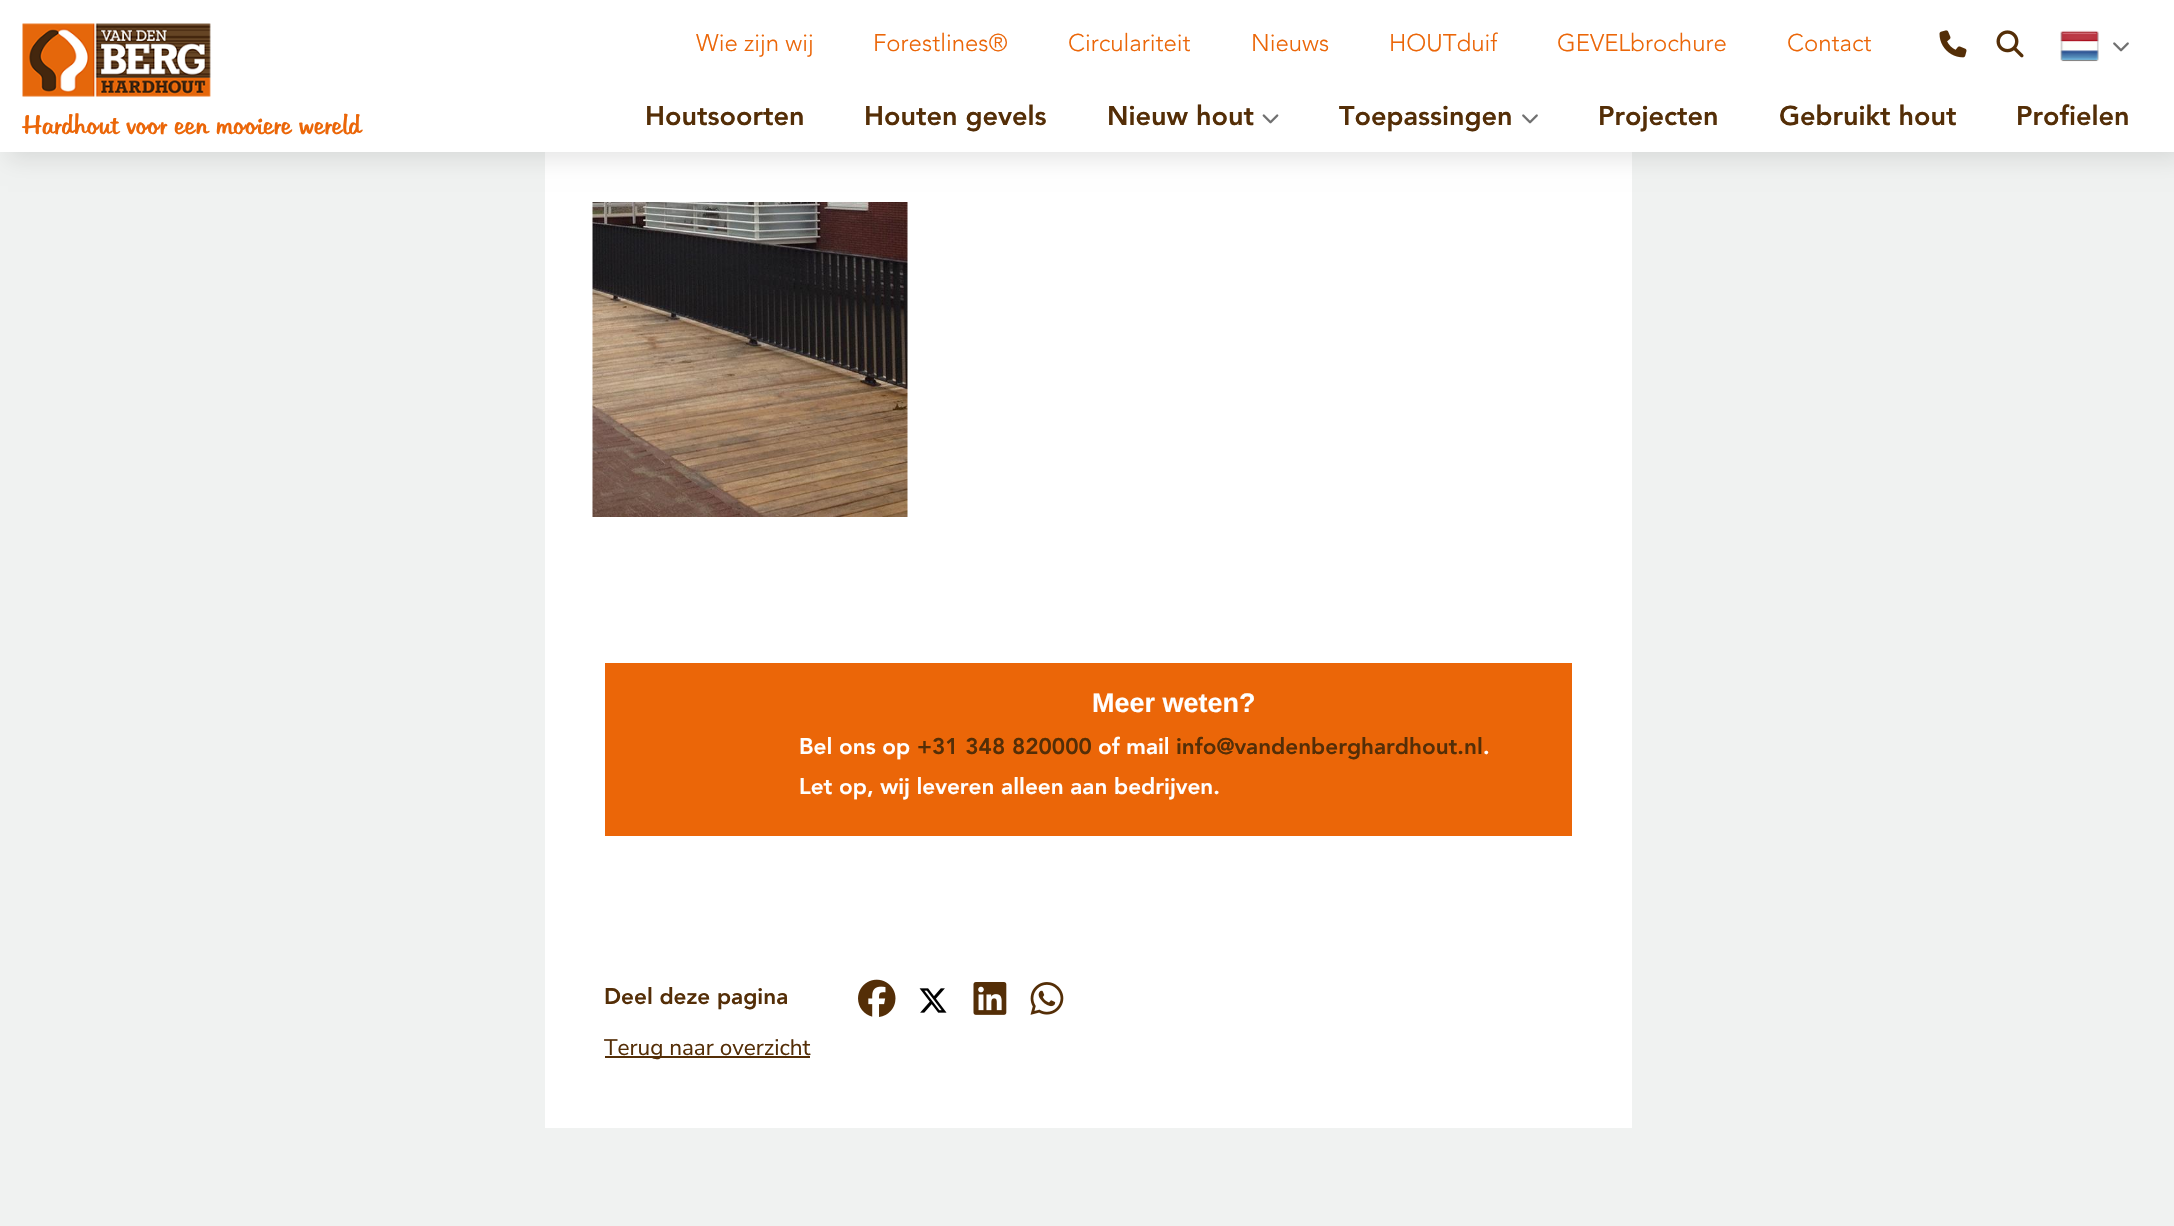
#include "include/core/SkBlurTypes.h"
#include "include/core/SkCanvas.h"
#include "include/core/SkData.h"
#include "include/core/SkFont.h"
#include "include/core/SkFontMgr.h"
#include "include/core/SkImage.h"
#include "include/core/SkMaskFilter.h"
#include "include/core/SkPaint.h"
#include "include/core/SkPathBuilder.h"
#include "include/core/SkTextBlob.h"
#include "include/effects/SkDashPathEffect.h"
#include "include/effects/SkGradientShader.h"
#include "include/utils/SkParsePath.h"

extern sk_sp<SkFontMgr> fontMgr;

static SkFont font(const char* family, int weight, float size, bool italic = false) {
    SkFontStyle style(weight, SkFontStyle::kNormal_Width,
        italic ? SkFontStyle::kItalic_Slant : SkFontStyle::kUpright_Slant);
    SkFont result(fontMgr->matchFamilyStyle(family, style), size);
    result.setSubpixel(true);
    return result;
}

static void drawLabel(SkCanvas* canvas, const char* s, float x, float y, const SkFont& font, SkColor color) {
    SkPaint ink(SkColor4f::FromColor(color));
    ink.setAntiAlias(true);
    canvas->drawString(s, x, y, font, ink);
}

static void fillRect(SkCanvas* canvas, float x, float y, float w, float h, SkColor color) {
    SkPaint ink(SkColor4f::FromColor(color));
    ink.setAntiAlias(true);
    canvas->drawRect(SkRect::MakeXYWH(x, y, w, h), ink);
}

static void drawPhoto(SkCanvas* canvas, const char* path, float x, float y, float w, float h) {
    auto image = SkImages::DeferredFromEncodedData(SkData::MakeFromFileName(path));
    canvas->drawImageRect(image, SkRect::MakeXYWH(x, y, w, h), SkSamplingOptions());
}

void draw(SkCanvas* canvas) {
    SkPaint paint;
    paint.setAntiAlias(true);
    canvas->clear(0xFFF0F2F1);
    fillRect(canvas, 545, 152, 1087, 976, 0xFFFFFFFF);
    paint.setColor(0x1A000000);
    paint.setMaskFilter(SkMaskFilter::MakeBlur(kNormal_SkBlurStyle, 11));
    canvas->drawRect(SkRect::MakeXYWH(8, 8, 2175, 151), paint);
    paint.setMaskFilter(nullptr);
    fillRect(canvas, 0, 0, 2174, 152, 0xFFFFFFFF);
    drawPhoto(canvas, "assets/img1.png", 22, 23, 189, 74);
    SkFont font1 = font("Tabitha", 400, 27);
    drawLabel(canvas, "Hardhout voor een mooiere wereld", 23, 134, font1, 0xFFEB6608);
    SkFont font2 = font("Avenir", 300, 24);
    drawLabel(canvas, "Wie zijn wij", 696, 51, font2, 0xFFEB6608);
    drawLabel(canvas, "Forestlines®", 873, 51, font2, 0xFFEB6608);
    drawLabel(canvas, "Circulariteit", 1068, 51, font2, 0xFFEB6608);
    drawLabel(canvas, "Nieuws", 1251, 51, font2, 0xFFEB6608);
    drawLabel(canvas, "HOUTduif", 1389, 51, font2, 0xFFEB6608);
    drawLabel(canvas, "GEVELbrochure", 1557, 51, font2, 0xFFEB6608);
    drawLabel(canvas, "Contact", 1787, 51, font2, 0xFFEB6608);
    drawPhoto(canvas, "assets/img2.png", 1939, 30, 28, 28);
    drawPhoto(canvas, "assets/img3.png", 1996, 30, 28, 28);
    drawPhoto(canvas, "assets/img4.png", 2060, 30, 39, 32);
    drawPhoto(canvas, "assets/img5.png", 2113, 42, 16, 10);
    SkFont font3 = font("Avenir", 900, 27);
    drawLabel(canvas, "Houtsoorten", 645, 125, font3, 0xFF542E07);
    drawLabel(canvas, "Houten gevels", 864, 125, font3, 0xFF542E07);
    drawLabel(canvas, "Nieuw hout", 1107, 125, font3, 0xFF542E07);
    drawPhoto(canvas, "assets/img6.png", 1262, 114, 17, 10);
    drawLabel(canvas, "Toepassingen", 1339, 125, font3, 0xFF542E07);
    drawPhoto(canvas, "assets/img5.png", 1522, 114, 16, 10);
    drawLabel(canvas, "Projecten", 1598, 125, font3, 0xFF542E07);
    drawLabel(canvas, "Gebruikt hout", 1779, 125, font3, 0xFF542E07);
    drawLabel(canvas, "Profielen", 2016, 125, font3, 0xFF542E07);
    drawPhoto(canvas, "assets/img7.png", 592, 202, 316, 315);
    fillRect(canvas, 605, 663, 967, 173, 0xFFEB6608);
    SkFont font4 = font("Liberation Sans", 700, 27);
    drawLabel(canvas, "Meer weten?", 1092, 712, font4, 0xFFFFFFFF);
    SkFont font5 = font("Avenir", 900, 22.5f);
    drawLabel(canvas, "Bel ons op", 799, 754, font5, 0xFFFFFFFF);
    drawLabel(canvas, "+31 348 820000", 917, 754, font5, 0xFF542E07);
    drawLabel(canvas, "of mail", 1098, 754, font5, 0xFFFFFFFF);
    drawLabel(canvas, "info@vandenberghardhout.nl", 1176, 754, font5, 0xFF542E07);
    drawLabel(canvas, ".", 1483, 754, font5, 0xFFFFFFFF);
    drawLabel(canvas, "Let op, wij leveren alleen aan bedrijven.", 799, 794, font5, 0xFFFFFFFF);
    drawLabel(canvas, "Deel deze pagina", 604, 1004, font5, 0xFF542E07);
    drawPhoto(canvas, "assets/img8.png", 858, 979, 38, 38);
    drawPhoto(canvas, "assets/img9.png", 919, 988, 28, 25);
    drawPhoto(canvas, "assets/img10.png", 973, 982, 34, 33);
    drawPhoto(canvas, "assets/img11.png", 1030, 982, 34, 33);
    fillRect(canvas, 605, 1056, 205, 2, 0xFF542E07);
    SkFont font6 = font("Nunito Sans", 200, 22.5f);
    drawLabel(canvas, "Terug naar overzicht", 604, 1055, font6, 0xFF542E07);
}
